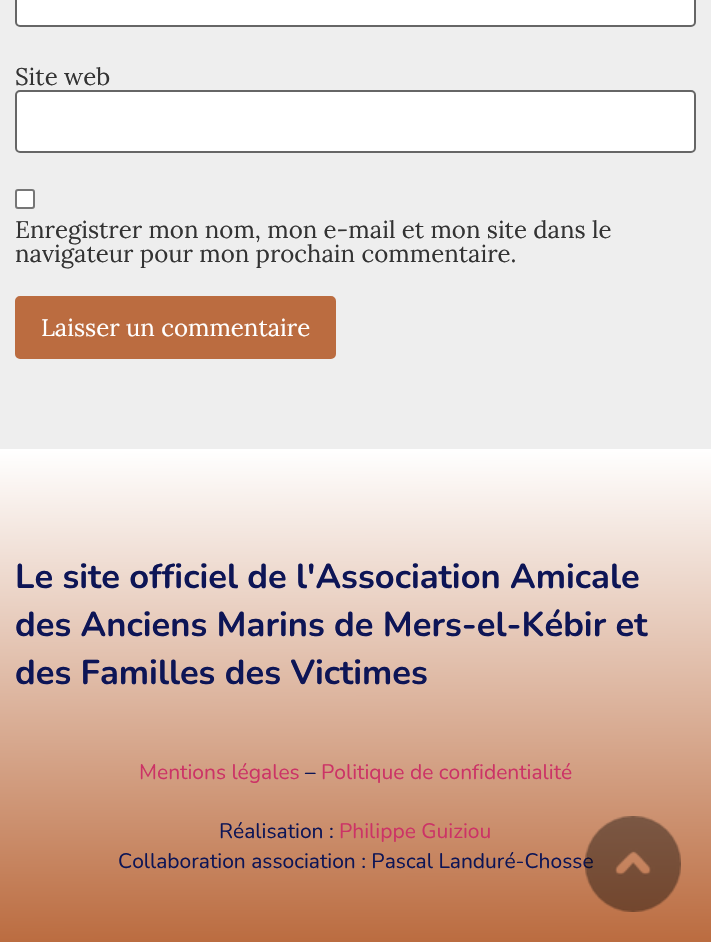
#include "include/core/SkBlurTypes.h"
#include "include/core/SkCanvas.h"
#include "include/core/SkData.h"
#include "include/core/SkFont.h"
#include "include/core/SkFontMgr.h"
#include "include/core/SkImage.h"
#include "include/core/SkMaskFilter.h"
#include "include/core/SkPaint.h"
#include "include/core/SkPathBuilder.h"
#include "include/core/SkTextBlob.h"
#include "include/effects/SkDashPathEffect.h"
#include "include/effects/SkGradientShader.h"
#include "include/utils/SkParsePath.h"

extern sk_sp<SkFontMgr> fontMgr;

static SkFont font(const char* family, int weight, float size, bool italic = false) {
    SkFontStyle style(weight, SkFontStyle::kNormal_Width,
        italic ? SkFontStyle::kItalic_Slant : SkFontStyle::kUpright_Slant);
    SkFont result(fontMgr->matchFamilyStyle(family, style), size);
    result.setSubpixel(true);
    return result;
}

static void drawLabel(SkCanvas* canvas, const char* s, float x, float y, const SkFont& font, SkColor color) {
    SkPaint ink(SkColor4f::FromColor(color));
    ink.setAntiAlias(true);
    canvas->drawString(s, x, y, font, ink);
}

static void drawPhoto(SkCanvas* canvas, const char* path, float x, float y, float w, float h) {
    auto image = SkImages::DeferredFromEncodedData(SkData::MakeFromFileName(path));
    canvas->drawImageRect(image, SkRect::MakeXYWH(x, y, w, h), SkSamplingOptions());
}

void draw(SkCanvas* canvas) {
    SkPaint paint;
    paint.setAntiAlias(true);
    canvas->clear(0xFFEEEEEE);
    paint.setColor(0xFFFFFFFF);
    canvas->drawRoundRect(SkRect::MakeXYWH(16, -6, 679, 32), 4, 4, paint);
    paint.setStroke(true);
    paint.setStrokeWidth(2);
    paint.setColor(0xFF666666);
    canvas->drawRoundRect(SkRect::MakeXYWH(16, -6, 679, 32), 4, 4, paint);
    SkFont font1 = font("Lora", 400, 24);
    drawLabel(canvas, "Site web", 15, 85, font1, 0xFF333333);
    paint.setStroke(false);
    paint.setColor(0xFFFFFFFF);
    canvas->drawRoundRect(SkRect::MakeXYWH(16, 91, 679, 61), 4, 4, paint);
    paint.setStroke(true);
    paint.setColor(0xFF666666);
    canvas->drawRoundRect(SkRect::MakeXYWH(16, 91, 679, 61), 4, 4, paint);
    paint.setStroke(false);
    paint.setColor(0xFFFFFFFF);
    canvas->drawRoundRect(SkRect::MakeXYWH(16, 190, 18, 18), 2, 2, paint);
    paint.setStroke(true);
    paint.setColor(0xFF767676);
    canvas->drawRoundRect(SkRect::MakeXYWH(16, 190, 18, 18), 2, 2, paint);
    drawLabel(canvas, "Enregistrer mon nom, mon e-mail et mon site dans le", 15, 238, font1, 0xFF333333);
    drawLabel(canvas, "navigateur pour mon prochain commentaire.", 15, 262, font1, 0xFF333333);
    paint.setStroke(false);
    paint.setColor(0xFFBB6C40);
    canvas->drawRoundRect(SkRect::MakeXYWH(16, 297, 319, 61), 4, 4, paint);
    paint.setStroke(true);
    canvas->drawRoundRect(SkRect::MakeXYWH(16, 297, 319, 61), 4, 4, paint);
    drawLabel(canvas, "Laisser un commentaire", 41, 336, font1, 0xFFFFFFFF);
    paint.setStroke(false);
    {
        const SkColor colors[] = {0xFFFFFFFF, 0xFFBB6C40};
        const float stops[] = {0, 1};
        const SkPoint ends[] = {{355, 449}, {356, 942}};
        paint.setShader(SkGradientShader::MakeLinear(ends, colors, stops, 2, SkTileMode::kClamp));
        paint.setAlpha(255);
    }
    canvas->drawRect(SkRect::MakeXYWH(0, 449, 711, 493), paint);
    SkFont font2 = font("Nunito", 700, 34.5f);
    drawLabel(canvas, "Le site officiel de l'Association Amicale", 15, 588, font2, 0xFF0D1556);
    drawLabel(canvas, "des Anciens Marins de Mers-el-Kébir et", 15, 636, font2, 0xFF0D1556);
    drawLabel(canvas, "des Familles des Victimes", 15, 684, font2, 0xFF0D1556);
    SkFont font3 = font("Nunito", 400, 21);
    drawLabel(canvas, "Mentions légales", 139, 779, font3, 0xFFCC3366);
    drawLabel(canvas, "–", 305, 779, font3, 0xFF0D1556);
    drawLabel(canvas, "Politique de confidentialité", 321, 779, font3, 0xFFCC3366);
    drawLabel(canvas, "Réalisation :", 219, 838, font3, 0xFF0D1556);
    drawLabel(canvas, "Philippe Guiziou", 339, 838, font3, 0xFFCC3366);
    drawLabel(canvas, "Collaboration association : Pascal Landuré-Chosse", 118, 868, font3, 0xFF0D1556);
    drawPhoto(canvas, "assets/img1.png", 585, 816, 96, 96);
}
